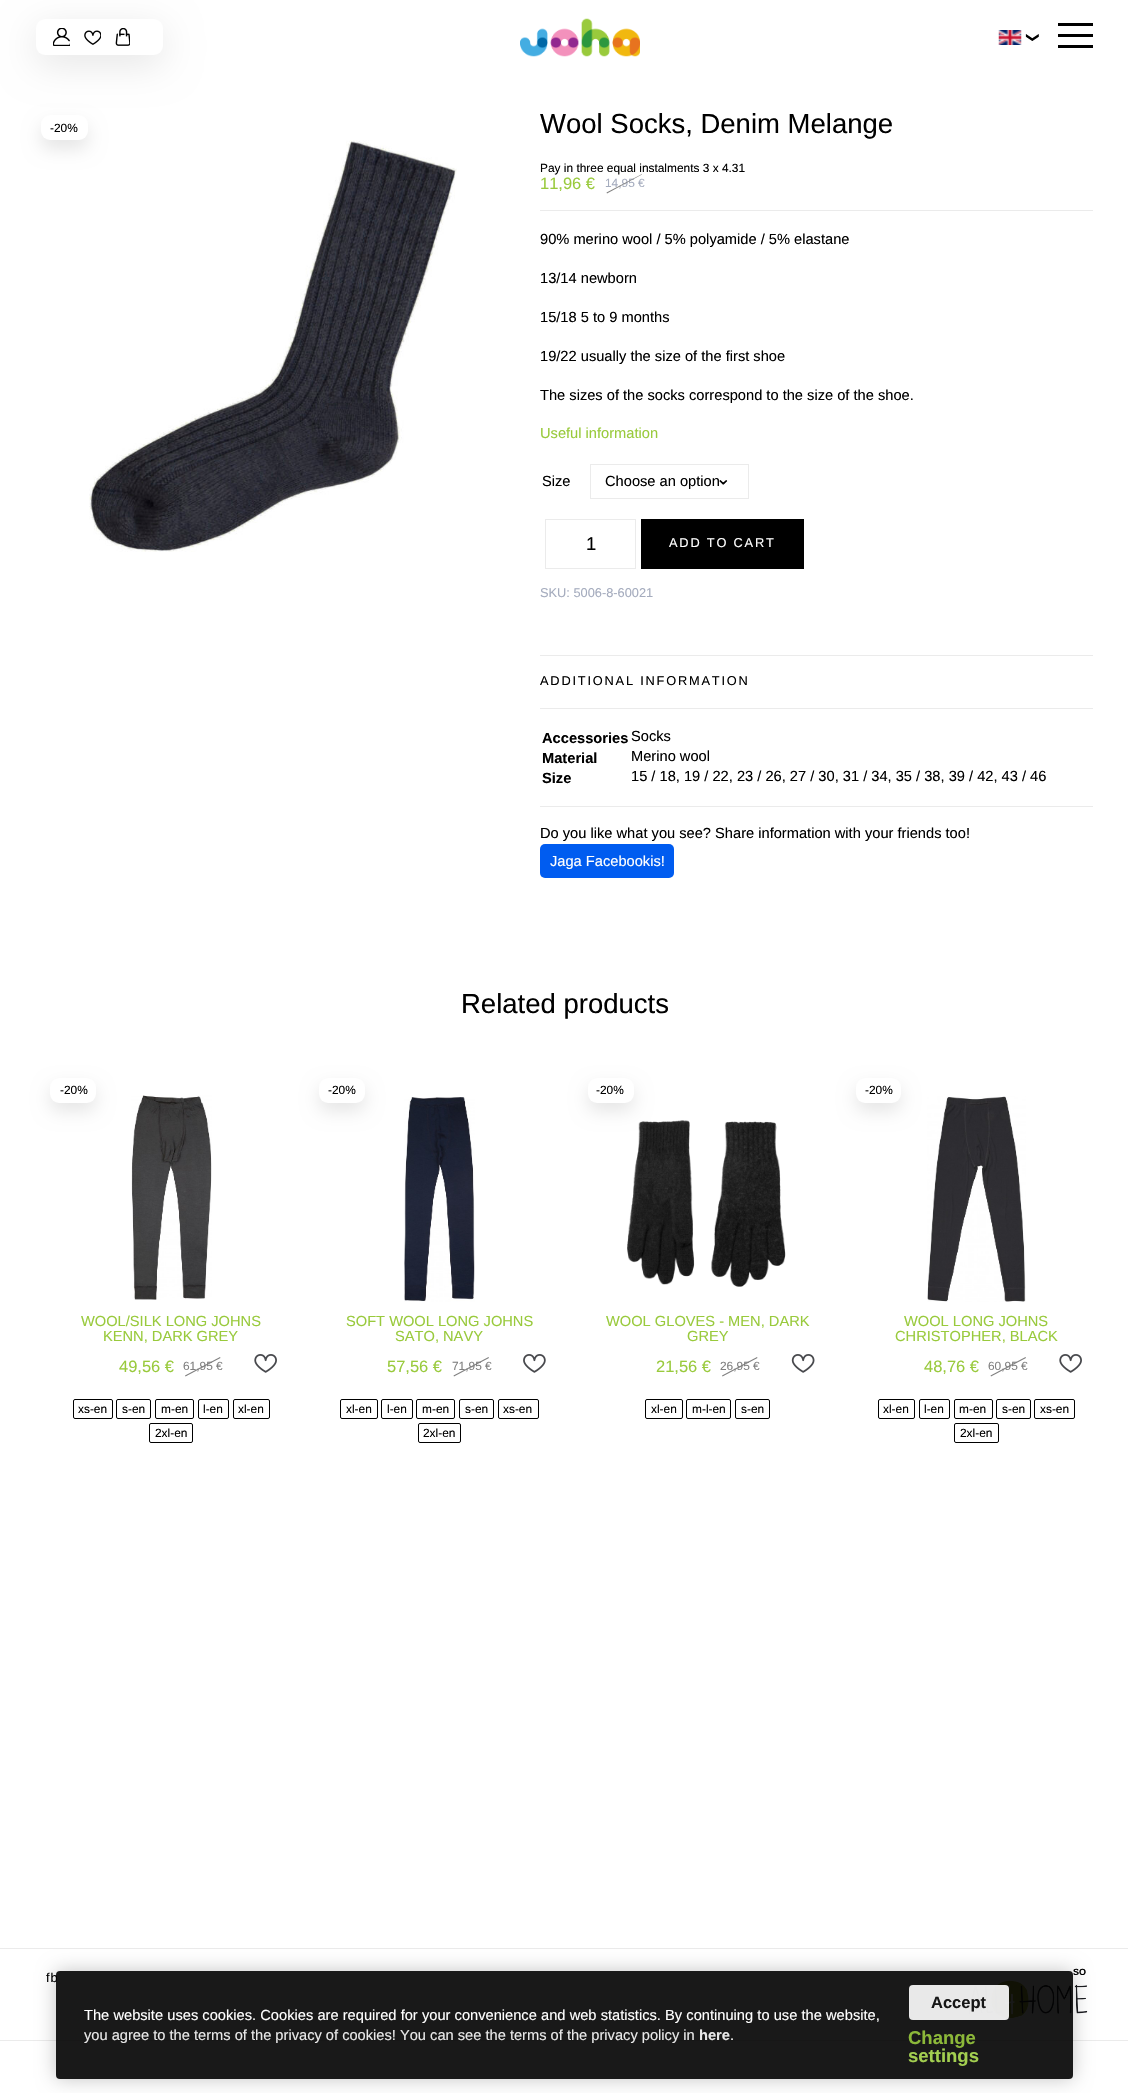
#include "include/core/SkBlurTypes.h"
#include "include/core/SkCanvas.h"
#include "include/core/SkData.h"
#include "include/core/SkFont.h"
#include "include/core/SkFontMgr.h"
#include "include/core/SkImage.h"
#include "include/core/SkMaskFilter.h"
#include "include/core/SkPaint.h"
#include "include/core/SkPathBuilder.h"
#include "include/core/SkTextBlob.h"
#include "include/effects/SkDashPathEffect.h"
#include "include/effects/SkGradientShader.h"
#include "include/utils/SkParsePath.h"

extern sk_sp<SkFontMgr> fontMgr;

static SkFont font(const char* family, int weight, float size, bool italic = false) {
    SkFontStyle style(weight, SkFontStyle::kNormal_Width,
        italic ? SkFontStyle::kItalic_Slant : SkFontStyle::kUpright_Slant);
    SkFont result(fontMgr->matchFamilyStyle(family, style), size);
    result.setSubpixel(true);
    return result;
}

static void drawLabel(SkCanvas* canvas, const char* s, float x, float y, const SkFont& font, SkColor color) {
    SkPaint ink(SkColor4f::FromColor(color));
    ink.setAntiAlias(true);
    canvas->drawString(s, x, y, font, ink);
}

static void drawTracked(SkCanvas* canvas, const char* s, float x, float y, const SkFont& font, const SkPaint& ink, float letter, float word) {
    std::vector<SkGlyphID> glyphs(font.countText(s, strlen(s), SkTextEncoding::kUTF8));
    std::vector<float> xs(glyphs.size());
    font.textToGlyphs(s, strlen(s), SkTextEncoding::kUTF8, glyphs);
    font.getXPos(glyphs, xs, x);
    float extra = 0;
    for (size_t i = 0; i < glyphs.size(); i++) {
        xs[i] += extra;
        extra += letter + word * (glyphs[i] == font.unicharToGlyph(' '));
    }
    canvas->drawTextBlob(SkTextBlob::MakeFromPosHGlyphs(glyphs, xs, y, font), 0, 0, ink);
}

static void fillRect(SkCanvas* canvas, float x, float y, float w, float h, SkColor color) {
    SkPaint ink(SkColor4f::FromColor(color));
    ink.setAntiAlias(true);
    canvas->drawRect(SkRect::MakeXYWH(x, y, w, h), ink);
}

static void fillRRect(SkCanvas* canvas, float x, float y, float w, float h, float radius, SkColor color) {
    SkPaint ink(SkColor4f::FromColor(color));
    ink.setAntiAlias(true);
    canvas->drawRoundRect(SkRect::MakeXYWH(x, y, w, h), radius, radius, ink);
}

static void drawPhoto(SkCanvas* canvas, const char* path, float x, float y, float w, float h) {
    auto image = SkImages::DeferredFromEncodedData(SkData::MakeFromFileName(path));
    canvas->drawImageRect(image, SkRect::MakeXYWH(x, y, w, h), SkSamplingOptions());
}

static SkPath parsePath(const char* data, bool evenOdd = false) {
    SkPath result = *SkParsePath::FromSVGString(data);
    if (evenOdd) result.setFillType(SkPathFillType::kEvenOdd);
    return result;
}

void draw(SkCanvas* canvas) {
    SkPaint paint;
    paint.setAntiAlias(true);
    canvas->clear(0xFFFFFFFF);
    drawPhoto(canvas, "assets/img6.png", 89, 140, 368, 412);
    paint.setColor(0x1A000000);
    paint.setMaskFilter(SkMaskFilter::MakeBlur(kNormal_SkBlurStyle, 9));
    canvas->drawRoundRect(SkRect::MakeXYWH(41, 124, 47, 25), 9, 9, paint);
    paint.setMaskFilter(nullptr);
    fillRRect(canvas, 41, 115, 47, 25, 9, 0xFFFFFFFF);
    paint.setMaskFilter(SkMaskFilter::MakeBlur(kNormal_SkBlurStyle, 18.5f));
    canvas->drawRoundRect(SkRect::MakeXYWH(36, 28, 127, 36), 9, 9, paint);
    paint.setMaskFilter(nullptr);
    fillRRect(canvas, 36, 19, 127, 36, 9, 0xFFFFFFFF);
    drawPhoto(canvas, "assets/img1.png", 53, 28, 17, 18);
    drawPhoto(canvas, "assets/img2.png", 84, 30, 17, 15);
    drawPhoto(canvas, "assets/img3.png", 115, 28, 15, 18);
    drawPhoto(canvas, "assets/img4.png", 520, 18, 120, 39);
    drawPhoto(canvas, "assets/img5.png", 998, 30, 24, 15);
    SkFont font1 = font("DejaVu Sans", 400, 12.8f);
    canvas->save();
    canvas->rotate(90, 1029, 32);
    drawLabel(canvas, "❯", 1029, 32, font1, 0xFF000000);
    canvas->restore();
    fillRect(canvas, 1058, 34, 35, 3, 0xFF000000);
    fillRect(canvas, 1058, 23, 35, 3, 0xFF000000);
    fillRect(canvas, 1058, 45, 35, 3, 0xFF000000);
    SkFont font2 = font("Liberation Sans", 400, 11.9f);
    drawLabel(canvas, "-20%", 50, 132, font2, 0xFF000000);
    SkFont font3 = font("Liberation Sans", 400, 27.5f);
    drawLabel(canvas, "Wool Socks, Denim Melange", 540, 133, font3, 0xFF000000);
    drawLabel(canvas, "Pay in three equal instalments 3 x 4.31", 540, 172, font2, 0xFF000000);
    fillRect(canvas, 540, 210, 553, 1, 0xFFEBEBEB);
    SkFont font4 = font("Liberation Sans", 400, 16.5f);
    drawLabel(canvas, "11,96 €", 540, 189, font4, 0xFF99CA3C);
    drawLabel(canvas, "14,95 €", 605, 187, font2, 0xFFA5ACBE);
    paint.setColor(0xFF808080);
    canvas->drawPath(parsePath("M606.5 192.5L642 174V174.5L607 193.5Z"), paint);
    SkFont font5 = font("Liberation Sans", 400, 14.65f);
    drawLabel(canvas, "90% merino wool / 5% polyamide / 5% elastane", 540, 244, font5, 0xFF000000);
    drawLabel(canvas, "13/14 newborn", 540, 283, font5, 0xFF000000);
    drawLabel(canvas, "15/18 5 to 9 months", 540, 322, font5, 0xFF000000);
    drawLabel(canvas, "19/22 usually the size of the first shoe", 540, 361, font5, 0xFF000000);
    drawLabel(canvas, "The sizes of the socks correspond to the size of the shoe.", 540, 400, font5, 0xFF000000);
    drawLabel(canvas, "Useful information", 540, 438, font5, 0xFF99CA3C);
    drawLabel(canvas, "Size", 542, 486, font5, 0xFF000000);
    paint.setStroke(true);
    paint.setStrokeWidth(1);
    paint.setColor(0xFFEBEBEB);
    canvas->drawRect(SkRect::MakeXYWH(590.5f, 464.5f, 158, 34), paint);
    drawLabel(canvas, "Choose an option", 605, 486, font5, 0xFF000000);
    SkFont font6 = font("DejaVu Sans", 400, 18.5f);
    canvas->save();
    canvas->rotate(180, 731, 471);
    drawLabel(canvas, "⌃", 731, 471, font6, 0xFF000000);
    canvas->restore();
    canvas->drawRect(SkRect::MakeXYWH(545.5f, 519.5f, 90, 49), paint);
    SkFont font7 = font("Liberation Sans", 400, 18.5f);
    drawLabel(canvas, "1", 586, 550, font7, 0xFF000000);
    fillRect(canvas, 641, 519, 163, 50, 0xFF000000);
    SkFont font8 = font("Liberation Sans", 400, 12.8f);
    paint.setStroke(false);
    paint.setColor(0xFFFFFFFF);
    drawTracked(canvas, "ADD TO CART", 669, 547, font8, paint, 1.8f, 0);
    drawLabel(canvas, "SKU: 5006-8-60021", 540, 597, font8, 0xFFA5ACBE);
    fillRect(canvas, 540, 655, 553, 1, 0xFFEBEBEB);
    fillRect(canvas, 540, 708, 553, 1, 0xFFEBEBEB);
    paint.setColor(0xFF000000);
    drawTracked(canvas, "ADDITIONAL INFORMATION", 540, 685, font8, paint, 1.8f, 0);
    SkFont font9 = font("Liberation Sans", 700, 14.65f);
    drawLabel(canvas, "Accessories", 542, 743, font9, 0xFF000000);
    drawLabel(canvas, "Socks", 631, 741, font5, 0xFF000000);
    drawLabel(canvas, "Material", 542, 763, font9, 0xFF000000);
    drawLabel(canvas, "Merino wool", 631, 761, font5, 0xFF000000);
    drawLabel(canvas, "Size", 542, 783, font9, 0xFF000000);
    drawLabel(canvas, "15 / 18, 19 / 22, 23 / 26, 27 / 30, 31 / 34, 35 / 38, 39 / 42, 43 / 46", 631, 781, font5, 0xFF000000);
    fillRect(canvas, 540, 806, 553, 1, 0xFFEBEBEB);
    drawLabel(canvas, "Do you like what you see? Share information with your friends too!", 540, 838, font5, 0xFF000000);
    fillRRect(canvas, 540, 844, 134, 34, 5, 0xFF005CF0);
    drawLabel(canvas, "Jaga Facebookis!", 550, 866, font5, 0xFFFFFFFF);
    drawLabel(canvas, "Related products", 461, 1013, font3, 0xFF000000);
    paint.setColor(0x1A000000);
    paint.setMaskFilter(SkMaskFilter::MakeBlur(kNormal_SkBlurStyle, 9));
    canvas->drawRoundRect(SkRect::MakeXYWH(50, 1086, 46, 25), 9, 9, paint);
    paint.setMaskFilter(nullptr);
    fillRRect(canvas, 50, 1078, 46, 25, 9, 0xFFFFFFFF);
    drawLabel(canvas, "-20%", 60, 1094, font2, 0xFF000000);
    drawPhoto(canvas, "assets/img7.png", 131, 1095, 81, 205);
    drawLabel(canvas, "WOOL/SILK LONG JOHNS", 81, 1326, font5, 0xFF99CA3C);
    drawLabel(canvas, "KENN, DARK GREY", 103, 1341, font5, 0xFF99CA3C);
    drawLabel(canvas, "49,56 €", 119, 1372, font4, 0xFF99CA3C);
    paint.setColor(0xFF808080);
    canvas->drawPath(parsePath("M185 1375.5L220 1357L220.5 1358L185.5 1376.5Z"), paint);
    drawLabel(canvas, "61,95 €", 183, 1370, font2, 0xFF808080);
    drawPhoto(canvas, "assets/img8.png", 254, 1354, 23, 19);
    paint.setStroke(true);
    paint.setColor(0xFF000000);
    canvas->drawRoundRect(SkRect::MakeXYWH(73.5f, 1399.5f, 39, 19), 1.5f, 1.5f, paint);
    drawLabel(canvas, "xs-en", 78, 1413, font2, 0xFF000000);
    canvas->drawRoundRect(SkRect::MakeXYWH(116.5f, 1399.5f, 34, 19), 1.5f, 1.5f, paint);
    drawLabel(canvas, "s-en", 122, 1413, font2, 0xFF000000);
    canvas->drawRoundRect(SkRect::MakeXYWH(155.5f, 1399.5f, 38, 19), 1.5f, 1.5f, paint);
    drawLabel(canvas, "m-en", 161, 1413, font2, 0xFF000000);
    canvas->drawRoundRect(SkRect::MakeXYWH(198.5f, 1399.5f, 30, 19), 1.5f, 1.5f, paint);
    drawLabel(canvas, "l-en", 203, 1413, font2, 0xFF000000);
    canvas->drawRoundRect(SkRect::MakeXYWH(233.5f, 1399.5f, 36, 19), 1.5f, 1.5f, paint);
    drawLabel(canvas, "xl-en", 238, 1413, font2, 0xFF000000);
    canvas->drawRoundRect(SkRect::MakeXYWH(149.5f, 1423.5f, 43, 19), 1.5f, 1.5f, paint);
    drawLabel(canvas, "2xl-en", 155, 1437, font2, 0xFF000000);
    paint.setStroke(false);
    paint.setColor(0x1A000000);
    paint.setMaskFilter(SkMaskFilter::MakeBlur(kNormal_SkBlurStyle, 9));
    canvas->drawRoundRect(SkRect::MakeXYWH(319, 1086, 46, 25), 9, 9, paint);
    paint.setMaskFilter(nullptr);
    fillRRect(canvas, 319, 1078, 46, 25, 9, 0xFFFFFFFF);
    drawLabel(canvas, "-20%", 328, 1094, font2, 0xFF000000);
    drawPhoto(canvas, "assets/img9.png", 404, 1097, 71, 205);
    drawLabel(canvas, "SOFT WOOL LONG JOHNS", 346, 1326, font5, 0xFF99CA3C);
    drawLabel(canvas, "SATO, NAVY", 395, 1341, font5, 0xFF99CA3C);
    drawLabel(canvas, "57,56 €", 387, 1372, font4, 0xFF99CA3C);
    paint.setColor(0xFF808080);
    canvas->drawPath(parsePath("M453.5 1375.5L488.5 1357L489 1358L454 1376.5Z"), paint);
    drawLabel(canvas, "71,95 €", 452, 1370, font2, 0xFF808080);
    drawPhoto(canvas, "assets/img10.png", 523, 1354, 23, 19);
    paint.setStroke(true);
    paint.setColor(0xFF000000);
    canvas->drawRoundRect(SkRect::MakeXYWH(340.5f, 1399.5f, 37, 19), 1.5f, 1.5f, paint);
    drawLabel(canvas, "xl-en", 346, 1413, font2, 0xFF000000);
    canvas->drawRoundRect(SkRect::MakeXYWH(381.5f, 1399.5f, 31, 19), 1.5f, 1.5f, paint);
    drawLabel(canvas, "l-en", 387, 1413, font2, 0xFF000000);
    canvas->drawRoundRect(SkRect::MakeXYWH(416.5f, 1399.5f, 38, 19), 1.5f, 1.5f, paint);
    drawLabel(canvas, "m-en", 422, 1413, font2, 0xFF000000);
    canvas->drawRoundRect(SkRect::MakeXYWH(459.5f, 1399.5f, 34, 19), 1.5f, 1.5f, paint);
    drawLabel(canvas, "s-en", 465, 1413, font2, 0xFF000000);
    canvas->drawRoundRect(SkRect::MakeXYWH(498.5f, 1399.5f, 40, 19), 1.5f, 1.5f, paint);
    drawLabel(canvas, "xs-en", 503, 1413, font2, 0xFF000000);
    canvas->drawRoundRect(SkRect::MakeXYWH(418.5f, 1423.5f, 42, 19), 1.5f, 1.5f, paint);
    drawLabel(canvas, "2xl-en", 423, 1437, font2, 0xFF000000);
    drawPhoto(canvas, "assets/img11.png", 627, 1120, 159, 167);
    paint.setStroke(false);
    paint.setColor(0x1A000000);
    paint.setMaskFilter(SkMaskFilter::MakeBlur(kNormal_SkBlurStyle, 9));
    canvas->drawRoundRect(SkRect::MakeXYWH(588, 1086, 46, 25), 9, 9, paint);
    paint.setMaskFilter(nullptr);
    fillRRect(canvas, 588, 1078, 46, 25, 9, 0xFFFFFFFF);
    drawLabel(canvas, "-20%", 596, 1094, font2, 0xFF000000);
    drawLabel(canvas, "WOOL GLOVES - MEN, DARK", 606, 1326, font5, 0xFF99CA3C);
    drawLabel(canvas, "GREY", 687, 1341, font5, 0xFF99CA3C);
    drawLabel(canvas, "21,56 €", 656, 1372, font4, 0xFF99CA3C);
    paint.setColor(0xFF808080);
    canvas->drawPath(parsePath("M722 1375.5L757 1357L757.5 1358L722.5 1376.5Z"), paint);
    drawLabel(canvas, "26,95 €", 720, 1370, font2, 0xFF808080);
    drawPhoto(canvas, "assets/img12.png", 791, 1354, 24, 19);
    paint.setStroke(true);
    paint.setColor(0xFF000000);
    canvas->drawRoundRect(SkRect::MakeXYWH(645.5f, 1399.5f, 37, 19), 1.5f, 1.5f, paint);
    drawLabel(canvas, "xl-en", 651, 1413, font2, 0xFF000000);
    canvas->drawRoundRect(SkRect::MakeXYWH(686.5f, 1399.5f, 44, 19), 1.5f, 1.5f, paint);
    drawLabel(canvas, "m-l-en", 692, 1413, font2, 0xFF000000);
    canvas->drawRoundRect(SkRect::MakeXYWH(735.5f, 1399.5f, 34, 19), 1.5f, 1.5f, paint);
    drawLabel(canvas, "s-en", 741, 1413, font2, 0xFF000000);
    drawPhoto(canvas, "assets/img13.png", 927, 1096, 99, 206);
    paint.setStroke(false);
    paint.setColor(0x1A000000);
    paint.setMaskFilter(SkMaskFilter::MakeBlur(kNormal_SkBlurStyle, 9));
    canvas->drawRoundRect(SkRect::MakeXYWH(856, 1086, 45, 25), 9, 9, paint);
    paint.setMaskFilter(nullptr);
    fillRRect(canvas, 856, 1078, 45, 25, 9, 0xFFFFFFFF);
    drawLabel(canvas, "-20%", 865, 1094, font2, 0xFF000000);
    drawLabel(canvas, "WOOL LONG JOHNS", 904, 1326, font5, 0xFF99CA3C);
    drawLabel(canvas, "CHRISTOPHER, BLACK", 895, 1341, font5, 0xFF99CA3C);
    drawLabel(canvas, "48,76 €", 924, 1372, font4, 0xFF99CA3C);
    paint.setColor(0xFF808080);
    canvas->drawPath(parsePath("M990.5 1375.5L1025.5 1357L1026 1358L991 1376.5Z"), paint);
    drawLabel(canvas, "60,95 €", 988, 1370, font2, 0xFF808080);
    drawPhoto(canvas, "assets/img14.png", 1059, 1354, 23, 19);
    paint.setStroke(true);
    paint.setColor(0xFF000000);
    canvas->drawRoundRect(SkRect::MakeXYWH(878.5f, 1399.5f, 36, 19), 1.5f, 1.5f, paint);
    drawLabel(canvas, "xl-en", 883, 1413, font2, 0xFF000000);
    canvas->drawRoundRect(SkRect::MakeXYWH(919.5f, 1399.5f, 30, 19), 1.5f, 1.5f, paint);
    drawLabel(canvas, "l-en", 924, 1413, font2, 0xFF000000);
    canvas->drawRoundRect(SkRect::MakeXYWH(954.5f, 1399.5f, 38, 19), 1.5f, 1.5f, paint);
    drawLabel(canvas, "m-en", 959, 1413, font2, 0xFF000000);
    canvas->drawRoundRect(SkRect::MakeXYWH(996.5f, 1399.5f, 34, 19), 1.5f, 1.5f, paint);
    drawLabel(canvas, "s-en", 1002, 1413, font2, 0xFF000000);
    canvas->drawRoundRect(SkRect::MakeXYWH(1034.5f, 1399.5f, 40, 19), 1.5f, 1.5f, paint);
    drawLabel(canvas, "xs-en", 1040, 1413, font2, 0xFF000000);
    canvas->drawRoundRect(SkRect::MakeXYWH(954.5f, 1423.5f, 44, 19), 1.5f, 1.5f, paint);
    drawLabel(canvas, "2xl-en", 960, 1437, font2, 0xFF000000);
    fillRect(canvas, 0, 1948, 1128, 1, 0xFFEBEBEB);
    paint.setStroke(false);
    drawTracked(canvas, "fb", 46, 1982, font8, paint, 1, 0);
    SkFont font10 = font("Liberation Sans", 700, 9);
    drawLabel(canvas, "SO", 1073, 1975, font10, 0xFF000000);
    drawPhoto(canvas, "assets/img15.png", 966, 1980, 122, 39);
    fillRect(canvas, 0, 2040, 1128, 1, 0xFFEBEBEB);
    canvas->save();
    canvas->clipPath(parsePath("M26 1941H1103V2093H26ZM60 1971H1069C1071 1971 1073 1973 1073 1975V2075C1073 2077 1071 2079 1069 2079H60C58 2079 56 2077 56 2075V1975C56 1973 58 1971 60 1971Z", true), true);
    paint.setColor(0x3B000000);
    paint.setMaskFilter(SkMaskFilter::MakeBlur(kNormal_SkBlurStyle, 9.5f));
    canvas->drawRoundRect(SkRect::MakeXYWH(56, 1971, 1017, 108), 4, 4, paint);
    paint.setMaskFilter(nullptr);
    canvas->restore();
    fillRRect(canvas, 56, 1971, 1017, 108, 4, 0xE6000000);
    paint.setColor(0xFFFFFFFF);
    drawTracked(canvas, "The website uses cookies. Cookies are required for your convenience and web statistics. By continuing to use the website,", 84, 2020, font5, paint, 0, 0.1f);
    drawLabel(canvas, "you agree to the terms of the privacy of cookies! You can see the terms of the privacy policy in", 84, 2040, font5, 0xFFE8E8E8);
    drawLabel(canvas, "here", 699, 2040, font9, 0xFFE8E8E8);
    drawLabel(canvas, ".", 730, 2040, font5, 0xFFFFFFFF);
    fillRRect(canvas, 909, 1985, 100, 35, 4, 0xE6FFFFFF);
    SkFont font11 = font("Liberation Sans", 700, 16.5f);
    drawLabel(canvas, "Accept", 931, 2008, font11, 0xFF171717);
    SkFont font12 = font("Liberation Sans", 700, 18.5f);
    drawLabel(canvas, "Change", 908, 2044, font12, 0xFF8CB839);
    drawLabel(canvas, "settings", 908, 2062, font12, 0xFFA3CF50);
}
